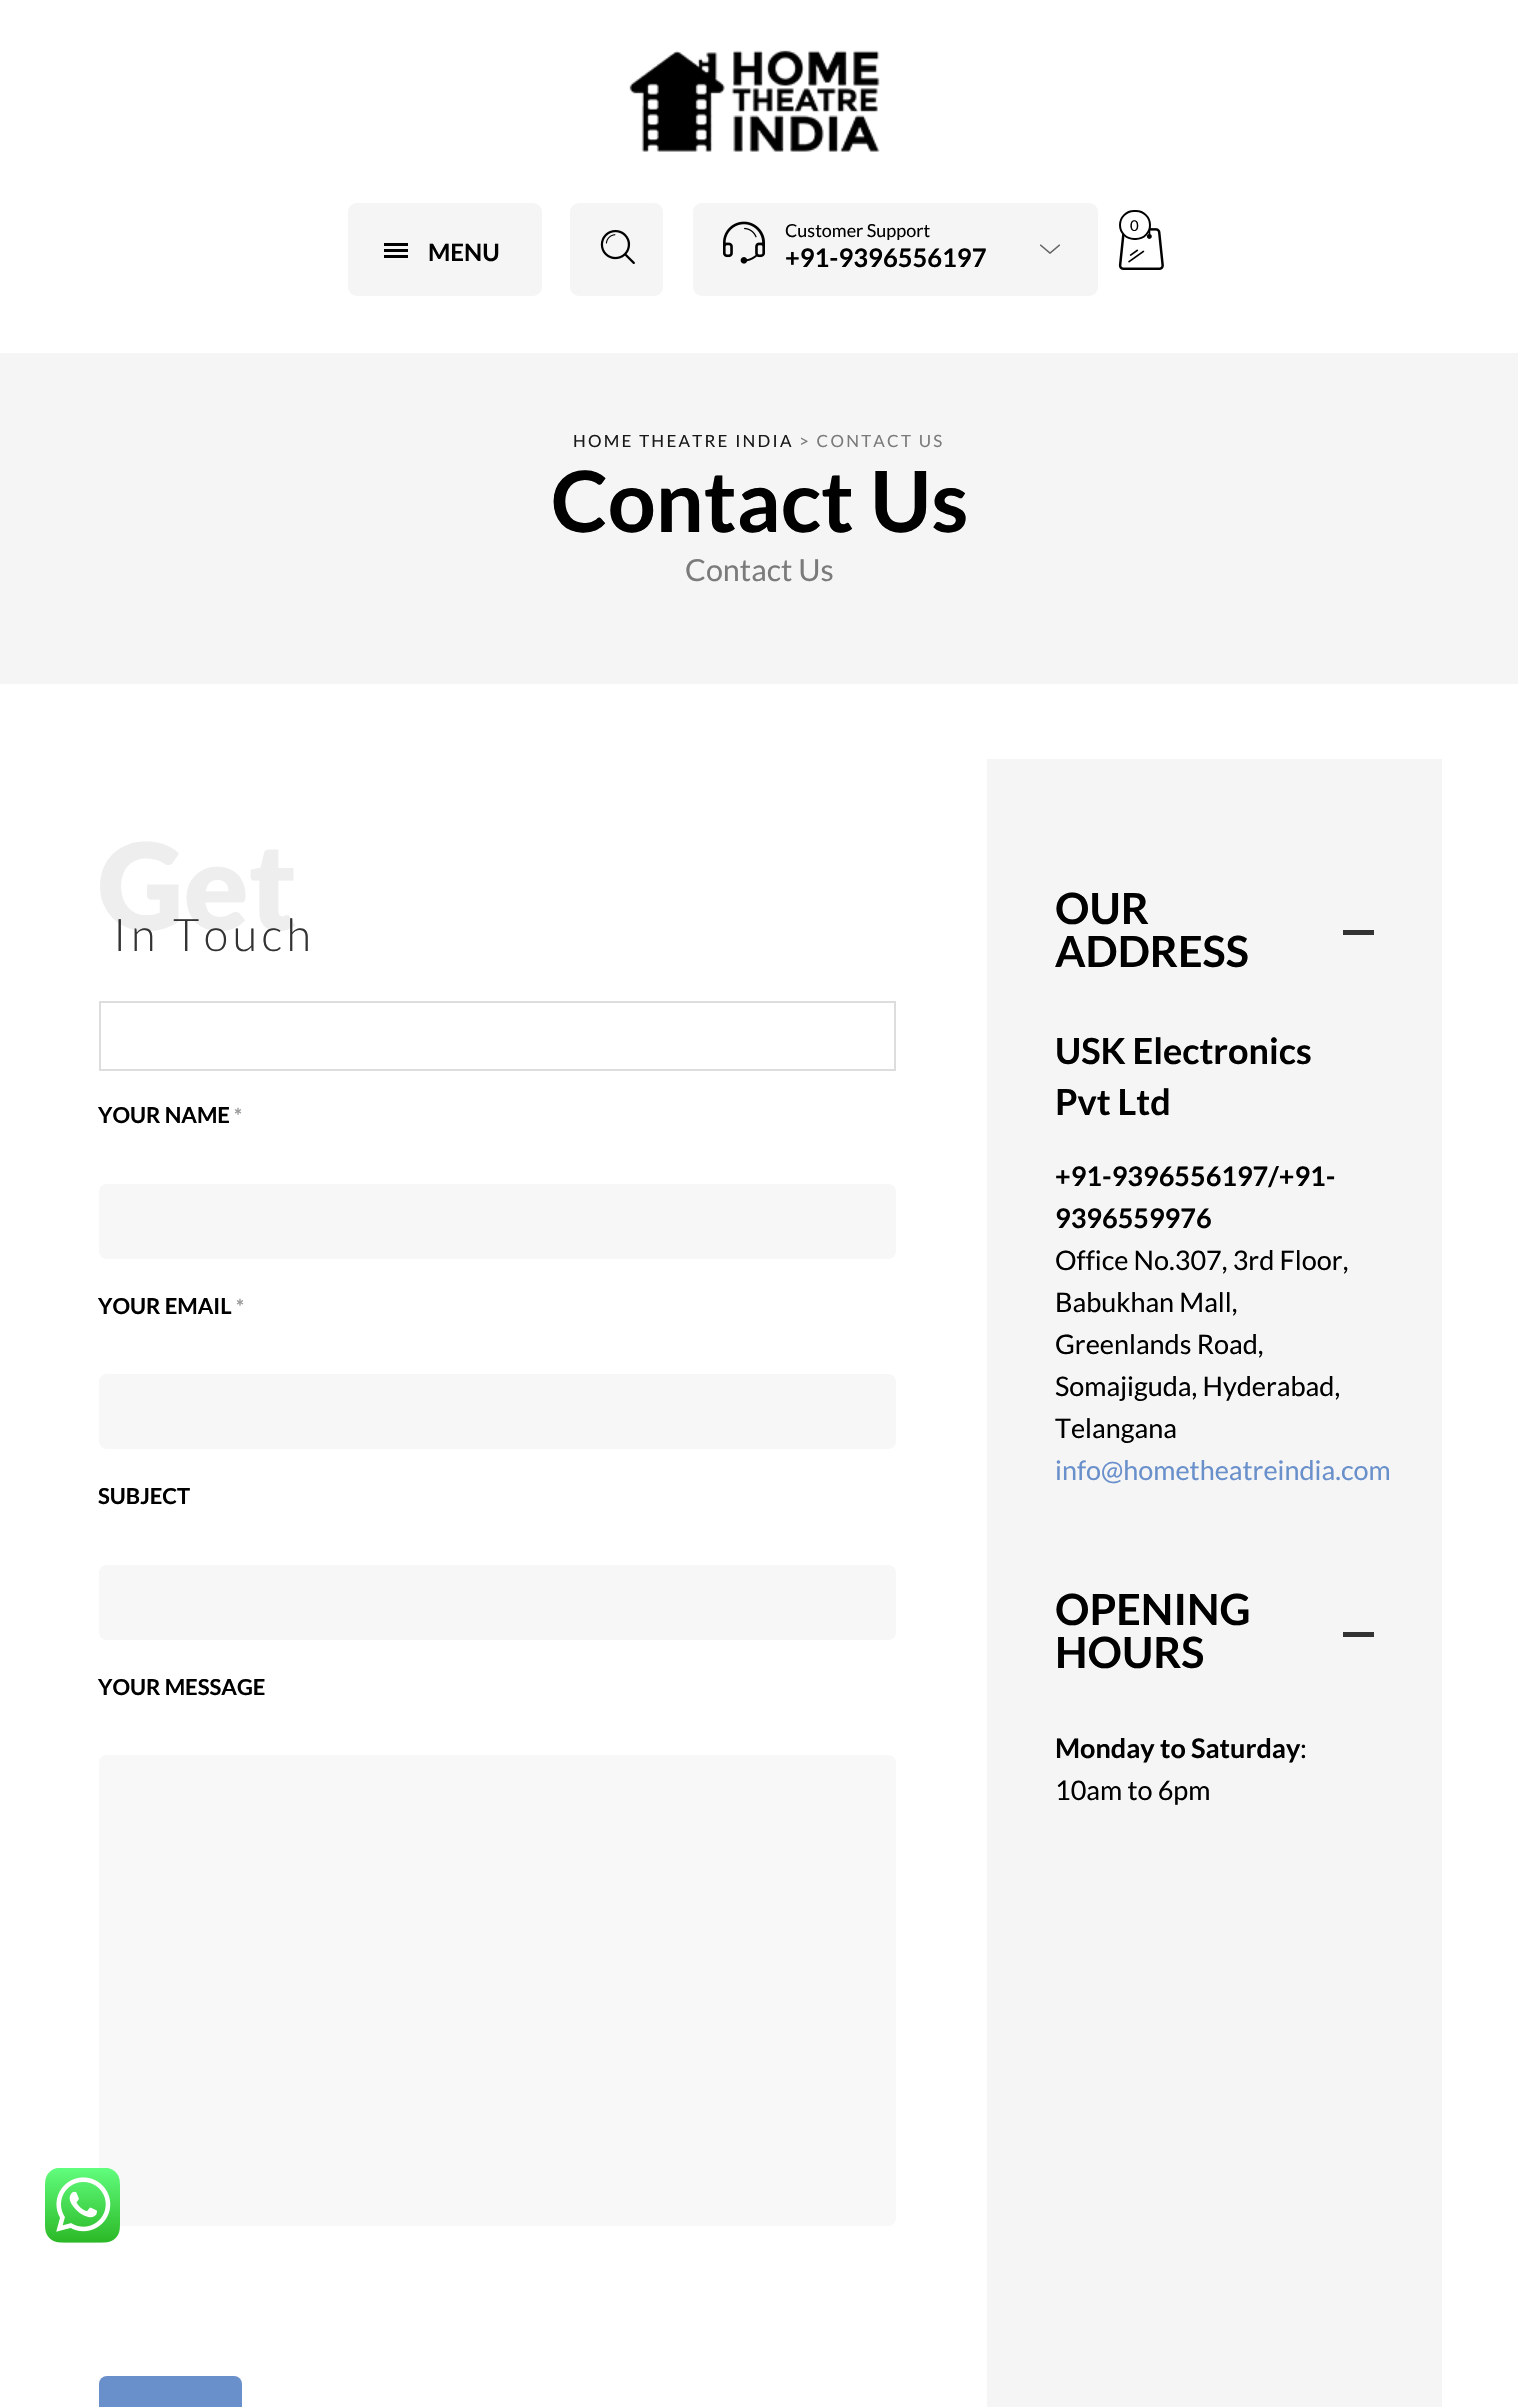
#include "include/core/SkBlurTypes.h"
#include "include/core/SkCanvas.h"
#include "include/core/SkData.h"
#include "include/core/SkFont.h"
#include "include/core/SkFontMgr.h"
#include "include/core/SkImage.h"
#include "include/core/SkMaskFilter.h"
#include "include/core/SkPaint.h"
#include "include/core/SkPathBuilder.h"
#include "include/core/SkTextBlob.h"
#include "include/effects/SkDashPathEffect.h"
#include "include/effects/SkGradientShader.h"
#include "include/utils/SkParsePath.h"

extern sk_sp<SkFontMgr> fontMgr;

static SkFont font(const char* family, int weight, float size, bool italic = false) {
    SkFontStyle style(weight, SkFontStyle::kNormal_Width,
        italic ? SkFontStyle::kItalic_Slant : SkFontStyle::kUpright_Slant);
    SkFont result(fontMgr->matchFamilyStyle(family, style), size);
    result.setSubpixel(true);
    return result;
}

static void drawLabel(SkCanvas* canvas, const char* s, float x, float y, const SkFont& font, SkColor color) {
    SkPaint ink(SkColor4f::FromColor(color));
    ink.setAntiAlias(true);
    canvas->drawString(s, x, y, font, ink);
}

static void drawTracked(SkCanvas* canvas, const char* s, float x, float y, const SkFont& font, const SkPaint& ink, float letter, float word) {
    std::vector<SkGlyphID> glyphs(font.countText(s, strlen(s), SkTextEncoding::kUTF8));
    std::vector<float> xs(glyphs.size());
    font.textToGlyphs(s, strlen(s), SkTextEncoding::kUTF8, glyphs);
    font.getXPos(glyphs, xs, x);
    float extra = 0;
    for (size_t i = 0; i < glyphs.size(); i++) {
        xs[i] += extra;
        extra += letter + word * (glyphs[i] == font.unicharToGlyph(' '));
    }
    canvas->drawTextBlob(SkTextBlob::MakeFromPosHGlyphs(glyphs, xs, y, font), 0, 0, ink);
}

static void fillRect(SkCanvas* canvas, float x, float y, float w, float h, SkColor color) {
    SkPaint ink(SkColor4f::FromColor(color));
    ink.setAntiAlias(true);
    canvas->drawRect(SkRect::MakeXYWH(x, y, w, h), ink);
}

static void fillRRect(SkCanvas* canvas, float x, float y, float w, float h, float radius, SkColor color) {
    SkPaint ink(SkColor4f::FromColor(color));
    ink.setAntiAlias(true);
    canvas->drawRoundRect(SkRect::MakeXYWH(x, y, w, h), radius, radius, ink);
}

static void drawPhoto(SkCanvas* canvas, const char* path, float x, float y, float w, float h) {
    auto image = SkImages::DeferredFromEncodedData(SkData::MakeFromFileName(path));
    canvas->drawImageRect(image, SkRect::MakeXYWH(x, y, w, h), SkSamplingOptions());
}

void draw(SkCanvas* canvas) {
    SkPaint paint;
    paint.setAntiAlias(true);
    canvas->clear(0xFFFFFFFF);
    drawPhoto(canvas, "assets/img1.png", 629, 50, 251, 102);
    fillRRect(canvas, 348, 203, 194, 93, 9, 0xFFF5F5F5);
    drawPhoto(canvas, "assets/img2.png", 384, 243, 24, 15);
    SkFont font1 = font("Lato", 700, 24);
    drawLabel(canvas, "MENU", 428, 261, font1, 0xFF000000);
    fillRRect(canvas, 570, 203, 93, 93, 9, 0xFFF5F5F5);
    drawPhoto(canvas, "assets/img3.png", 600, 229, 35, 36);
    fillRRect(canvas, 693, 203, 405, 93, 9, 0xFFF5F5F5);
    drawPhoto(canvas, "assets/img4.png", 723, 221, 42, 43);
    SkFont font2 = font("Lato", 400, 18);
    drawLabel(canvas, "Customer Support", 785, 237, font2, 0xFF000000);
    SkFont font3 = font("Lato", 700, 25.5f);
    drawLabel(canvas, "+91-9396556197", 785, 267, font3, 0xFF000000);
    drawPhoto(canvas, "assets/img5.png", 1039, 244, 22, 10);
    drawPhoto(canvas, "assets/img6.png", 1118, 218, 46, 52);
    paint.setColor(0xFFFFFFFF);
    canvas->drawRoundRect(SkRect::MakeXYWH(1120, 211, 30, 28), 14, 14, paint);
    paint.setStroke(true);
    paint.setStrokeWidth(2);
    paint.setColor(0xFF000000);
    canvas->drawRoundRect(SkRect::MakeXYWH(1120, 211, 30, 28), 14, 14, paint);
    SkFont font4 = font("Lato", 400, 15);
    drawLabel(canvas, "0", 1130, 231, font4, 0xFF000000);
    fillRect(canvas, 0, 353, 1518, 331, 0xFFF5F5F5);
    SkFont font5 = font("Lato", 400, 16.9f);
    paint.setStroke(false);
    paint.setColor(0xFF191919);
    drawTracked(canvas, "HOME THEATRE INDIA", 573, 447, font5, paint, 2.25f, 0);
    paint.setColor(0xFF7B7B7B);
    drawTracked(canvas, "> CONTACT US", 799, 447, font5, paint, 2.25f, 0);
    SkFont font6 = font("Lato", 700, 84.5f);
    drawLabel(canvas, "Contact Us", 551, 532, font6, 0xFF000000);
    SkFont font7 = font("Lato", 400, 30.5f);
    drawLabel(canvas, "Contact Us", 685, 581, font7, 0xFF7B7B7B);
    SkFont font8 = font("Lato", 900, 120);
    drawLabel(canvas, "Get", 98, 930, font8, 0xFFEEEEEE);
    SkFont font9 = font("Lato", 300, 45);
    paint.setColor(0xFF333333);
    drawTracked(canvas, "In Touch", 113, 951, font9, paint, 4.5f, 0);
    paint.setStroke(true);
    paint.setColor(0xFFDDDDDD);
    canvas->drawRect(SkRect::MakeXYWH(100, 1002, 795, 68), paint);
    SkFont font10 = font("Lato", 700, 22);
    drawLabel(canvas, "YOUR NAME", 98, 1123, font10, 0xFF000000);
    SkFont font11 = font("Lato", 700, 20);
    drawLabel(canvas, "*", 234, 1123, font11, 0xFF999999);
    fillRRect(canvas, 99, 1184, 797, 75, 8, 0xFFF7F7F7);
    drawLabel(canvas, "YOUR EMAIL", 98, 1314, font10, 0xFF000000);
    drawLabel(canvas, "*", 236, 1314, font11, 0xFF999999);
    fillRRect(canvas, 99, 1374, 797, 75, 8, 0xFFF7F7F7);
    drawLabel(canvas, "SUBJECT", 98, 1504, font10, 0xFF000000);
    fillRRect(canvas, 99, 1565, 797, 75, 8, 0xFFF7F7F7);
    drawLabel(canvas, "YOUR MESSAGE", 98, 1695, font10, 0xFF000000);
    fillRRect(canvas, 99, 1755, 797, 471, 8, 0xFFF8F8F8);
    fillRRect(canvas, 99, 2376, 143, 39, 8, 0xFF6990CB);
    fillRect(canvas, 987, 759, 455, 1648, 0xFFF5F5F5);
    SkFont font12 = font("Lato", 700, 43);
    drawLabel(canvas, "OUR", 1055, 924, font12, 0xFF000000);
    drawLabel(canvas, "ADDRESS", 1055, 967, font12, 0xFF000000);
    fillRect(canvas, 1343, 930, 31, 5, 0xFF333333);
    SkFont font13 = font("Lato", 700, 36);
    drawLabel(canvas, "USK Electronics", 1055, 1064, font13, 0xFF000000);
    drawLabel(canvas, "Pvt Ltd", 1055, 1115, font13, 0xFF000000);
    SkFont font14 = font("Lato", 700, 27);
    drawLabel(canvas, "+91-9396556197/+91-", 1055, 1186, font14, 0xFF000000);
    drawLabel(canvas, "9396559976", 1055, 1228, font14, 0xFF000000);
    SkFont font15 = font("Lato", 400, 27);
    drawLabel(canvas, "Office No.307, 3rd Floor,", 1055, 1270, font15, 0xFF000000);
    drawLabel(canvas, "Babukhan Mall,", 1055, 1312, font15, 0xFF000000);
    drawLabel(canvas, "Greenlands Road,", 1055, 1354, font15, 0xFF000000);
    drawLabel(canvas, "Somajiguda, Hyderabad,", 1055, 1396, font15, 0xFF000000);
    drawLabel(canvas, "Telangana", 1055, 1438, font15, 0xFF000000);
    drawLabel(canvas, "info@hometheatreindia.com", 1055, 1480, font15, 0xFF6990CB);
    drawLabel(canvas, "OPENING", 1055, 1625, font12, 0xFF000000);
    drawLabel(canvas, "HOURS", 1055, 1668, font12, 0xFF000000);
    fillRect(canvas, 1343, 1632, 31, 5, 0xFF333333);
    drawLabel(canvas, "Monday to Saturday", 1055, 1758, font14, 0xFF000000);
    drawLabel(canvas, ":", 1300, 1758, font15, 0xFF000000);
    drawLabel(canvas, "10am to 6pm", 1055, 1800, font15, 0xFF000000);
    drawPhoto(canvas, "assets/img7.png", 45, 2168, 75, 75);
}
